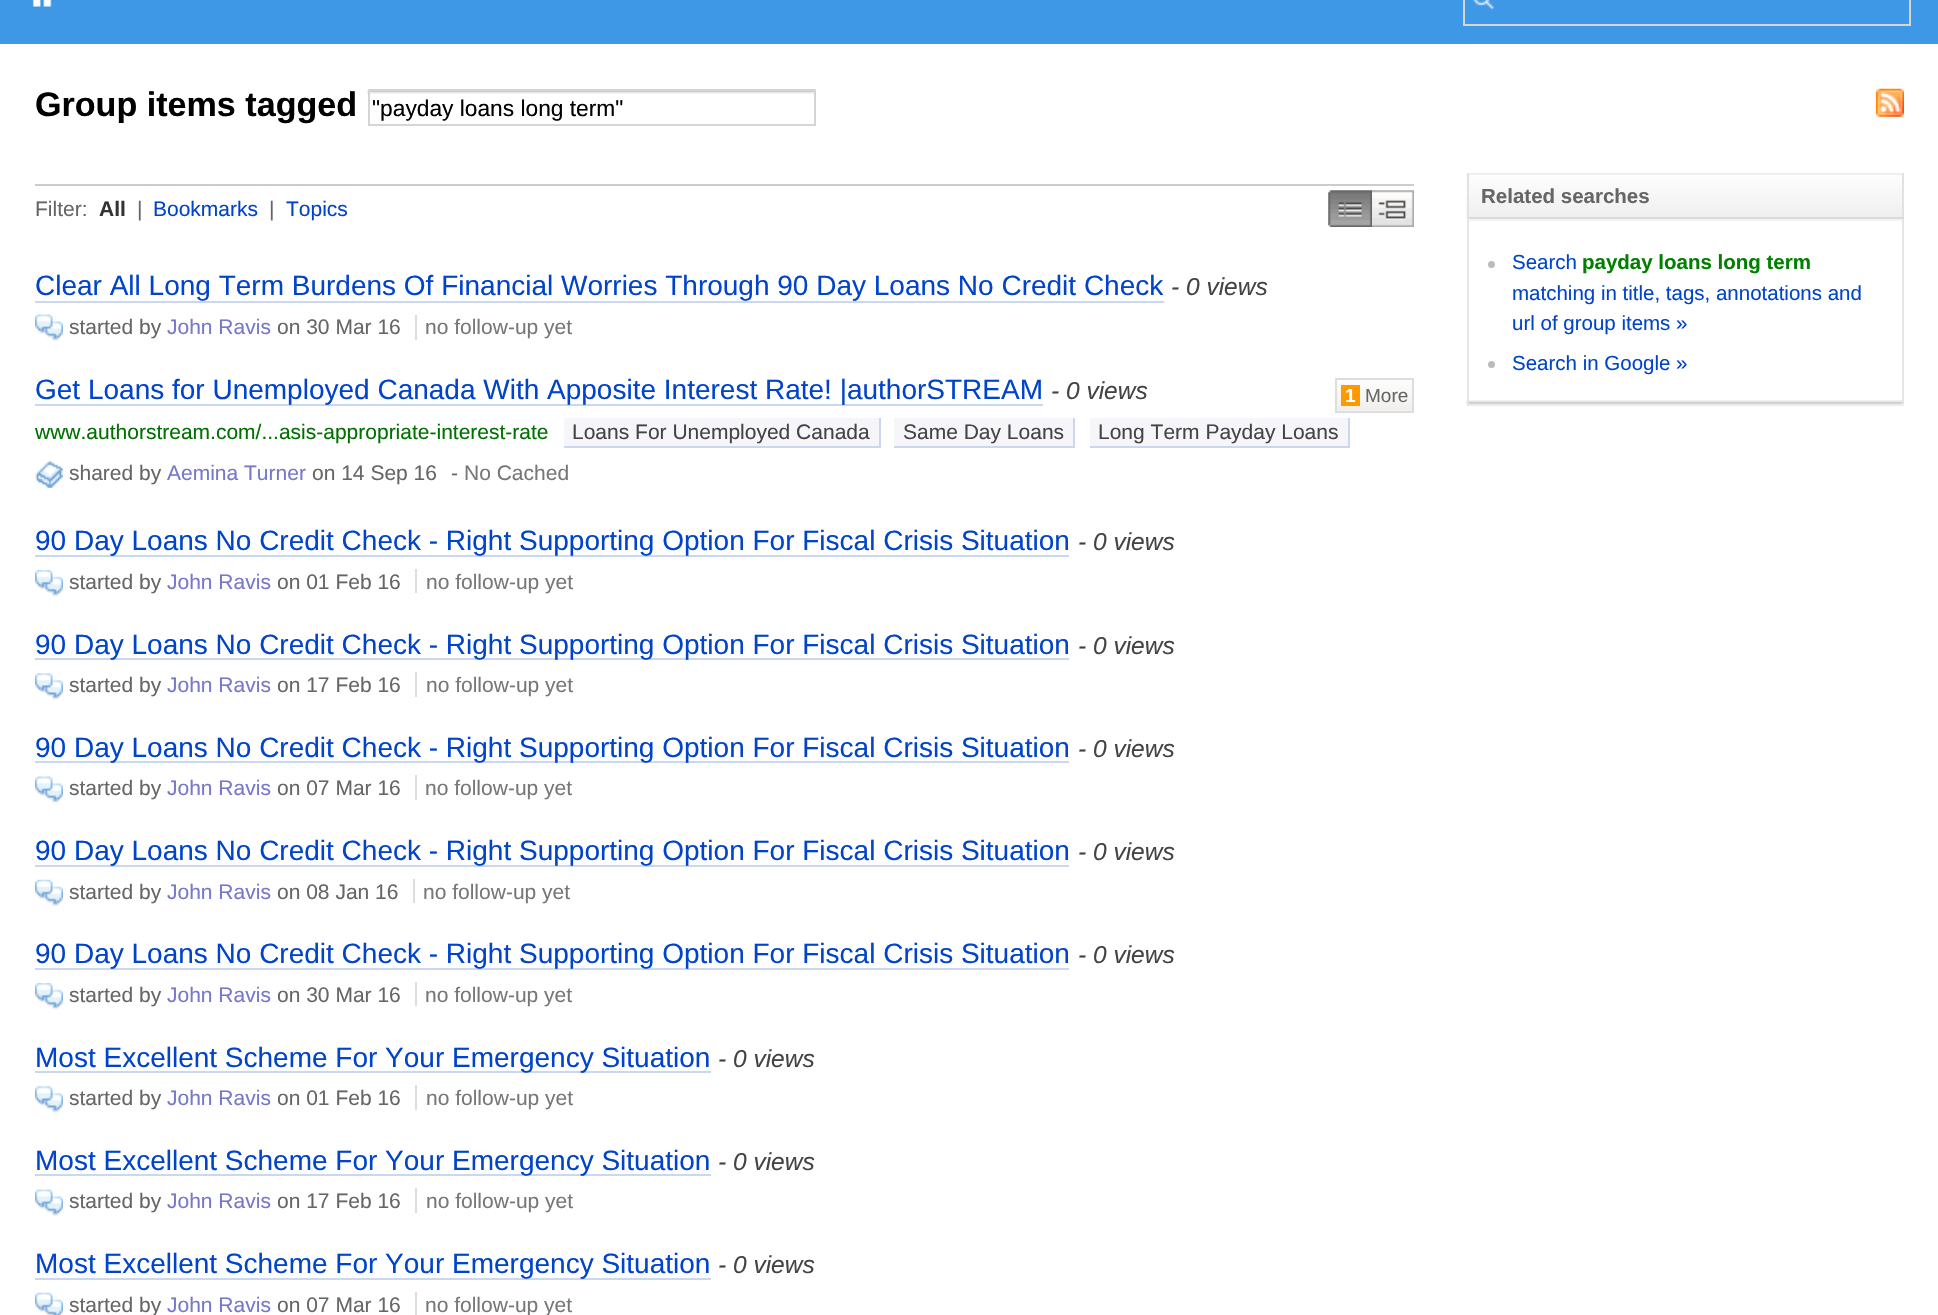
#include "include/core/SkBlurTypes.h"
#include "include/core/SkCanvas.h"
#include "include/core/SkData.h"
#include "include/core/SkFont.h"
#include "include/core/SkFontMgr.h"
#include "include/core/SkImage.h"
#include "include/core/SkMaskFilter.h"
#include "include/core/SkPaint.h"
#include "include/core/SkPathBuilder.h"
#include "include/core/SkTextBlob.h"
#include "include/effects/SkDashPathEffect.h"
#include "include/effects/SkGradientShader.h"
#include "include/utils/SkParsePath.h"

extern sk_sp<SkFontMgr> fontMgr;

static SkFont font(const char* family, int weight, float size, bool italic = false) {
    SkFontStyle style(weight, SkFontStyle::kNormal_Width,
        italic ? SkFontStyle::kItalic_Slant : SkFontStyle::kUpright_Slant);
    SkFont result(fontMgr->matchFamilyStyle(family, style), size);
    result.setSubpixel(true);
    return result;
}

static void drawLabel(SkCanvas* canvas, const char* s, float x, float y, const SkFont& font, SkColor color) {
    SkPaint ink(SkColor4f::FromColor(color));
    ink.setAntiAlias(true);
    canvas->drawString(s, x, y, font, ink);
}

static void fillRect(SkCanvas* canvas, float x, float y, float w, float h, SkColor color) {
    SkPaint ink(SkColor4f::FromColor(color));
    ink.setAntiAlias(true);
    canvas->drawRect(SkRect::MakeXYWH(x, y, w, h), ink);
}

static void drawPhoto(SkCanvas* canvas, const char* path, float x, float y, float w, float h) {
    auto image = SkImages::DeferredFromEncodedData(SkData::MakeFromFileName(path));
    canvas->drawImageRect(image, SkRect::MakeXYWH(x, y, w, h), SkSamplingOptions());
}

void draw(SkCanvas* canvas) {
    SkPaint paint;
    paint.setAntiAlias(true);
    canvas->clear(0xFFFFFFFF);
    fillRect(canvas, 0, 0, 1938, 44, 0xFF3F98E5);
    drawPhoto(canvas, "assets/img1.png", 32, 0, 20, 7);
    drawPhoto(canvas, "assets/img2.png", 1473, 0, 22, 10);
    paint.setStroke(true);
    paint.setStrokeWidth(2);
    paint.setColor(0xFFD5D5D5);
    canvas->drawRect(SkRect::MakeXYWH(1464, -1, 446, 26), paint);
    SkFont font1 = font("Liberation Sans", 700, 34.1f);
    drawLabel(canvas, "Group items tagged", 35, 116, font1, 0xFF000000);
    drawPhoto(canvas, "assets/img3.png", 367, 90, 447, 4);
    canvas->drawRect(SkRect::MakeXYWH(369, 90, 446, 35), paint);
    SkFont font2 = font("Liberation Sans", 400, 22.75f);
    drawLabel(canvas, "\"payday loans long term\"", 372, 116, font2, 0xFF000000);
    drawPhoto(canvas, "assets/img4.png", 1876, 88, 28, 29);
    fillRect(canvas, 35, 184, 1379, 2, 0xFFCCCCCC);
    SkFont font3 = font("Liberation Sans", 400, 21);
    drawLabel(canvas, "Filter:", 35, 216, font3, 0xFF666666);
    SkFont font4 = font("Liberation Sans", 700, 21);
    drawLabel(canvas, "All", 99, 216, font4, 0xFF333333);
    drawLabel(canvas, "|", 137, 216, font3, 0xFF666666);
    drawLabel(canvas, "Bookmarks", 153, 216, font3, 0xFF0044CC);
    drawLabel(canvas, "|", 269, 216, font3, 0xFF666666);
    drawLabel(canvas, "Topics", 286, 216, font3, 0xFF0044CC);
    drawPhoto(canvas, "assets/img5.png", 1328, 190, 44, 37);
    drawPhoto(canvas, "assets/img6.png", 1372, 190, 42, 37);
    SkFont font5 = font("Liberation Sans", 400, 28);
    drawLabel(canvas, "Clear All Long Term Burdens Of Financial Worries Through 90 Day Loans No Credit Check", 35, 295, font5, 0xFF0044CC);
    fillRect(canvas, 35, 301, 1129, 2, 0xFFC9D7F1);
    SkFont font6 = font("Liberation Sans", 400, 24.5f, true);
    drawLabel(canvas, "- 0 views", 1171, 295, font6, 0xFF444444);
    drawPhoto(canvas, "assets/img7.png", 35, 314, 28, 27);
    drawLabel(canvas, "started by", 69, 334, font3, 0xFF666666);
    drawLabel(canvas, "John Ravis", 167, 334, font3, 0xFF7777CC);
    drawLabel(canvas, "on 30 Mar 16", 277, 334, font3, 0xFF666666);
    drawLabel(canvas, "no follow-up yet", 425, 334, font3, 0xFF777777);
    fillRect(canvas, 415, 315, 2, 25, 0xFFDDDDDD);
    fillRect(canvas, 35, 404, 1008, 2, 0xFFC9D7F1);
    drawLabel(canvas, "Get Loans for Unemployed Canada With Apposite Interest Rate! |authorSTREAM", 35, 399, font5, 0xFF0044CC);
    drawLabel(canvas, "- 0 views", 1051, 399, font6, 0xFF444444);
    drawPhoto(canvas, "assets/img8.png", 1337, 380, 75, 31);
    paint.setColor(0xFFDDDDDD);
    canvas->drawRect(SkRect::MakeXYWH(1336, 379, 77, 33), paint);
    fillRect(canvas, 1341, 385, 19, 21, 0xFFFF9900);
    SkFont font7 = font("Liberation Sans", 700, 19);
    drawLabel(canvas, "1", 1345, 402, font7, 0xFFFFFFFF);
    SkFont font8 = font("Liberation Sans", 400, 19);
    drawLabel(canvas, "More", 1365, 402, font8, 0xFF666666);
    drawLabel(canvas, "www.authorstream.com/...asis-appropriate-interest-rate", 35, 439, font3, 0xFF007000);
    fillRect(canvas, 564, 418, 315, 28, 0xFFF5F5FA);
    drawLabel(canvas, "Loans For Unemployed Canada", 572, 439, font3, 0xFF444444);
    fillRect(canvas, 879, 418, 2, 30, 0xFFC9D7F1);
    fillRect(canvas, 564, 446, 316, 2, 0xFFC9D7F1);
    fillRect(canvas, 894, 418, 179, 28, 0xFFF5F5FA);
    drawLabel(canvas, "Same Day Loans", 903, 439, font3, 0xFF444444);
    fillRect(canvas, 1073, 418, 2, 30, 0xFFC9D7F1);
    fillRect(canvas, 894, 446, 181, 2, 0xFFC9D7F1);
    fillRect(canvas, 1090, 418, 258, 28, 0xFFF5F5FA);
    drawLabel(canvas, "Long Term Payday Loans", 1098, 439, font3, 0xFF444444);
    fillRect(canvas, 1348, 418, 2, 30, 0xFFC9D7F1);
    fillRect(canvas, 1090, 446, 259, 2, 0xFFC9D7F1);
    drawPhoto(canvas, "assets/img9.png", 35, 461, 28, 27);
    drawLabel(canvas, "shared by", 69, 480, font3, 0xFF666666);
    drawLabel(canvas, "Aemina Turner", 167, 480, font3, 0xFF7777CC);
    drawLabel(canvas, "on 14 Sep 16", 312, 480, font3, 0xFF666666);
    drawLabel(canvas, "-", 451, 480, font3, 0xFF666666);
    drawLabel(canvas, "No Cached", 464, 480, font3, 0xFF777777);
    fillRect(canvas, 35, 555, 1034, 2, 0xFFC9D7F1);
    drawLabel(canvas, "90 Day Loans No Credit Check - Right Supporting Option For Fiscal Crisis Situation", 35, 550, font5, 0xFF0044CC);
    drawLabel(canvas, "- 0 views", 1078, 550, font6, 0xFF444444);
    drawPhoto(canvas, "assets/img10.png", 35, 570, 28, 27);
    drawLabel(canvas, "started by", 69, 589, font3, 0xFF666666);
    drawLabel(canvas, "John Ravis", 167, 589, font3, 0xFF7777CC);
    drawLabel(canvas, "on 01 Feb 16", 277, 589, font3, 0xFF666666);
    drawLabel(canvas, "no follow-up yet", 426, 589, font3, 0xFF777777);
    fillRect(canvas, 415, 569, 2, 24, 0xFFDDDDDD);
    fillRect(canvas, 35, 658, 1034, 2, 0xFFC9D7F1);
    drawLabel(canvas, "90 Day Loans No Credit Check - Right Supporting Option For Fiscal Crisis Situation", 35, 654, font5, 0xFF0044CC);
    drawLabel(canvas, "- 0 views", 1078, 654, font6, 0xFF444444);
    drawPhoto(canvas, "assets/img11.png", 35, 673, 28, 27);
    drawLabel(canvas, "started by", 69, 692, font3, 0xFF666666);
    drawLabel(canvas, "John Ravis", 167, 692, font3, 0xFF7777CC);
    drawLabel(canvas, "on 17 Feb 16", 277, 692, font3, 0xFF666666);
    drawLabel(canvas, "no follow-up yet", 426, 692, font3, 0xFF777777);
    fillRect(canvas, 415, 672, 2, 25, 0xFFDDDDDD);
    fillRect(canvas, 35, 761, 1034, 2, 0xFFC9D7F1);
    drawLabel(canvas, "90 Day Loans No Credit Check - Right Supporting Option For Fiscal Crisis Situation", 35, 757, font5, 0xFF0044CC);
    drawLabel(canvas, "- 0 views", 1078, 757, font6, 0xFF444444);
    drawPhoto(canvas, "assets/img7.png", 35, 776, 28, 27);
    drawLabel(canvas, "started by", 69, 795, font3, 0xFF666666);
    drawLabel(canvas, "John Ravis", 167, 795, font3, 0xFF7777CC);
    drawLabel(canvas, "on 07 Mar 16", 277, 795, font3, 0xFF666666);
    drawLabel(canvas, "no follow-up yet", 425, 795, font3, 0xFF777777);
    fillRect(canvas, 415, 775, 2, 25, 0xFFDDDDDD);
    fillRect(canvas, 35, 865, 1034, 2, 0xFFC9D7F1);
    drawLabel(canvas, "90 Day Loans No Credit Check - Right Supporting Option For Fiscal Crisis Situation", 35, 860, font5, 0xFF0044CC);
    drawLabel(canvas, "- 0 views", 1078, 860, font6, 0xFF444444);
    drawPhoto(canvas, "assets/img12.png", 35, 879, 28, 27);
    drawLabel(canvas, "started by", 69, 899, font3, 0xFF666666);
    drawLabel(canvas, "John Ravis", 167, 899, font3, 0xFF7777CC);
    drawLabel(canvas, "on 08 Jan 16", 277, 899, font3, 0xFF666666);
    drawLabel(canvas, "no follow-up yet", 423, 899, font3, 0xFF777777);
    fillRect(canvas, 413, 879, 2, 24, 0xFFDDDDDD);
    fillRect(canvas, 35, 968, 1034, 2, 0xFFC9D7F1);
    drawLabel(canvas, "90 Day Loans No Credit Check - Right Supporting Option For Fiscal Crisis Situation", 35, 963, font5, 0xFF0044CC);
    drawLabel(canvas, "- 0 views", 1078, 963, font6, 0xFF444444);
    drawPhoto(canvas, "assets/img10.png", 35, 983, 28, 27);
    drawLabel(canvas, "started by", 69, 1002, font3, 0xFF666666);
    drawLabel(canvas, "John Ravis", 167, 1002, font3, 0xFF7777CC);
    drawLabel(canvas, "on 30 Mar 16", 277, 1002, font3, 0xFF666666);
    drawLabel(canvas, "no follow-up yet", 425, 1002, font3, 0xFF777777);
    fillRect(canvas, 415, 982, 2, 24, 0xFFDDDDDD);
    fillRect(canvas, 35, 1071, 676, 2, 0xFFC9D7F1);
    drawLabel(canvas, "Most Excellent Scheme For Your Emergency Situation", 35, 1067, font5, 0xFF0044CC);
    drawLabel(canvas, "- 0 views", 718, 1067, font6, 0xFF444444);
    drawPhoto(canvas, "assets/img11.png", 35, 1086, 28, 27);
    drawLabel(canvas, "started by", 69, 1105, font3, 0xFF666666);
    drawLabel(canvas, "John Ravis", 167, 1105, font3, 0xFF7777CC);
    drawLabel(canvas, "on 01 Feb 16", 277, 1105, font3, 0xFF666666);
    drawLabel(canvas, "no follow-up yet", 426, 1105, font3, 0xFF777777);
    fillRect(canvas, 415, 1085, 2, 25, 0xFFDDDDDD);
    fillRect(canvas, 35, 1174, 676, 2, 0xFFC9D7F1);
    drawLabel(canvas, "Most Excellent Scheme For Your Emergency Situation", 35, 1170, font5, 0xFF0044CC);
    drawLabel(canvas, "- 0 views", 718, 1170, font6, 0xFF444444);
    drawPhoto(canvas, "assets/img7.png", 35, 1189, 28, 27);
    drawLabel(canvas, "started by", 69, 1208, font3, 0xFF666666);
    drawLabel(canvas, "John Ravis", 167, 1208, font3, 0xFF7777CC);
    drawLabel(canvas, "on 17 Feb 16", 277, 1208, font3, 0xFF666666);
    drawLabel(canvas, "no follow-up yet", 426, 1208, font3, 0xFF777777);
    fillRect(canvas, 415, 1188, 2, 25, 0xFFDDDDDD);
    fillRect(canvas, 35, 1278, 676, 2, 0xFFC9D7F1);
    drawLabel(canvas, "Most Excellent Scheme For Your Emergency Situation", 35, 1273, font5, 0xFF0044CC);
    drawLabel(canvas, "- 0 views", 718, 1273, font6, 0xFF444444);
    drawPhoto(canvas, "assets/img13.png", 35, 1292, 28, 23);
    drawLabel(canvas, "started by", 69, 1312, font3, 0xFF666666);
    drawLabel(canvas, "John Ravis", 167, 1312, font3, 0xFF7777CC);
    drawLabel(canvas, "on 07 Mar 16", 277, 1312, font3, 0xFF666666);
    drawLabel(canvas, "no follow-up yet", 425, 1312, font3, 0xFF777777);
    fillRect(canvas, 415, 1292, 2, 23, 0xFFDDDDDD);
    drawPhoto(canvas, "assets/img14.png", 1466, 174, 436, 44);
    fillRect(canvas, 1467, 173, 437, 2, 0xFFEEEEEE);
    fillRect(canvas, 1902, 173, 2, 46, 0xFFE2E2E2);
    fillRect(canvas, 1467, 217, 437, 2, 0xFFD9D9D9);
    fillRect(canvas, 1467, 173, 2, 46, 0xFFE2E2E2);
    SkFont font9 = font("Liberation Sans", 700, 20.5f);
    drawLabel(canvas, "Related searches", 1481, 203, font9, 0xFF666666);
    drawPhoto(canvas, "assets/img15.png", 1466, 400, 436, 4);
    fillRect(canvas, 1467, 219, 437, 2, 0xFFF3F3F3);
    fillRect(canvas, 1902, 219, 2, 187, 0xFFE5E5E5);
    fillRect(canvas, 1467, 404, 437, 2, 0xFFECECEC);
    fillRect(canvas, 1467, 219, 2, 187, 0xFFE5E5E5);
    paint.setStroke(false);
    paint.setColor(0xFFBBBBBB);
    canvas->drawCircle(1491.5f, 264.5f, 3.5f, paint);
    SkFont font10 = font("Liberation Sans", 400, 20.5f);
    drawLabel(canvas, "Search", 1512, 269, font10, 0xFF0044CC);
    drawLabel(canvas, "payday loans long term", 1582, 269, font9, 0xFF008000);
    drawLabel(canvas, "matching in title, tags, annotations and", 1512, 300, font10, 0xFF0044CC);
    drawLabel(canvas, "url of group items »", 1512, 330, font10, 0xFF0044CC);
    canvas->drawCircle(1491.5f, 364.5f, 3.5f, paint);
    drawLabel(canvas, "Search in Google »", 1512, 370, font10, 0xFF0044CC);
}
